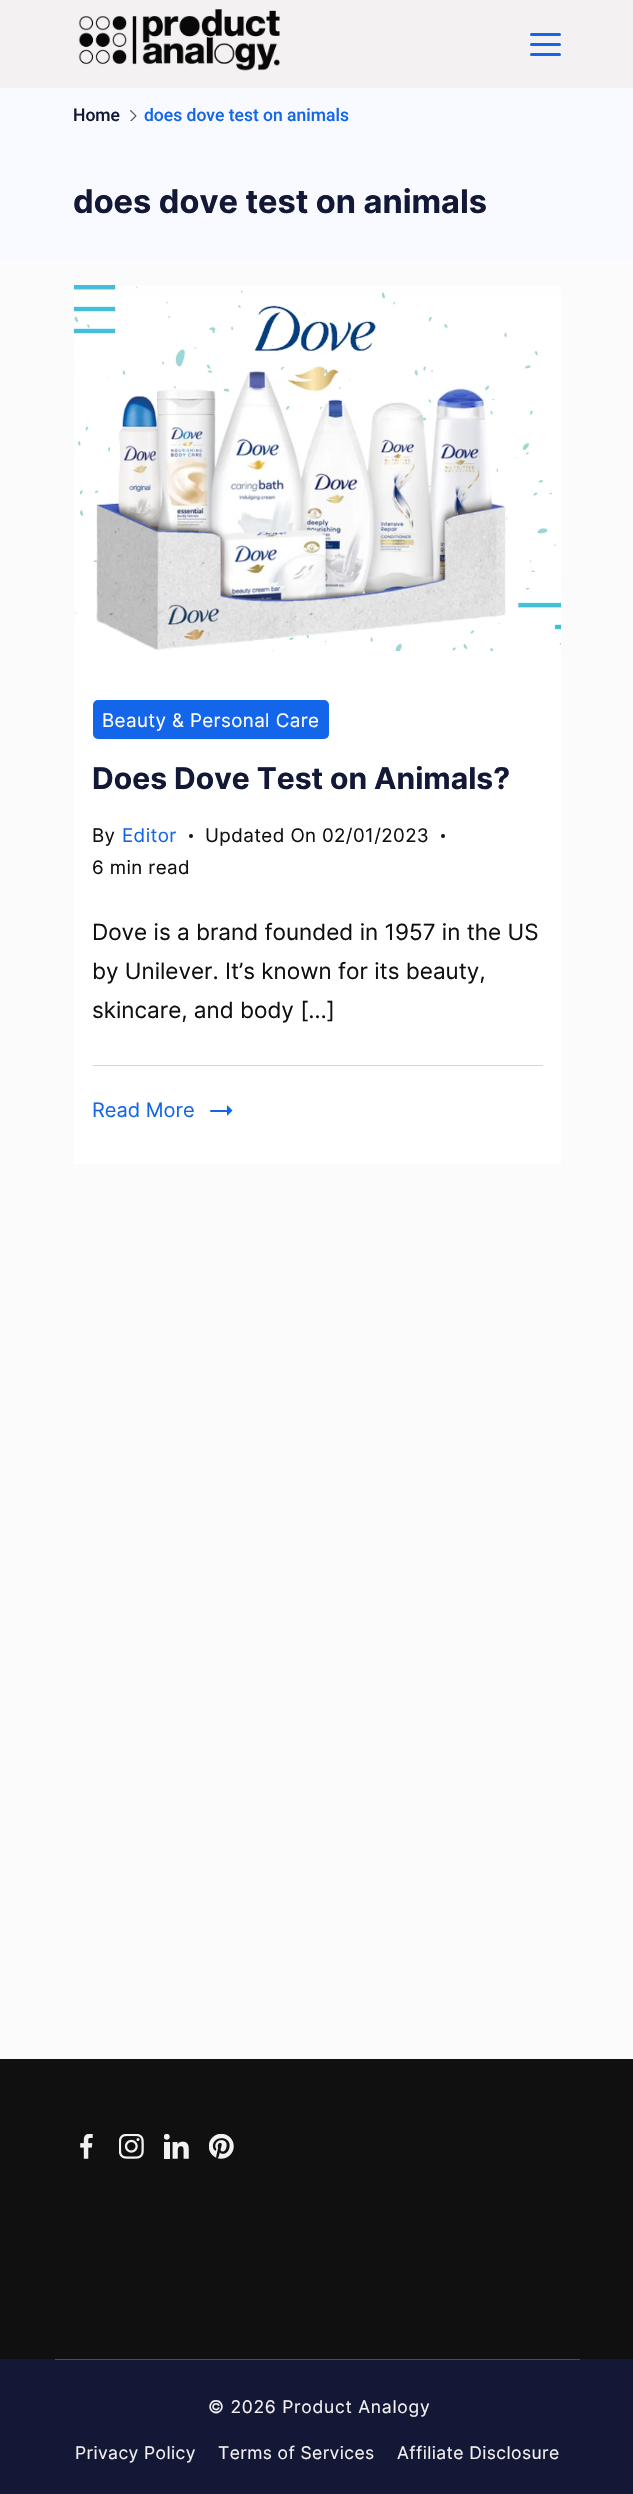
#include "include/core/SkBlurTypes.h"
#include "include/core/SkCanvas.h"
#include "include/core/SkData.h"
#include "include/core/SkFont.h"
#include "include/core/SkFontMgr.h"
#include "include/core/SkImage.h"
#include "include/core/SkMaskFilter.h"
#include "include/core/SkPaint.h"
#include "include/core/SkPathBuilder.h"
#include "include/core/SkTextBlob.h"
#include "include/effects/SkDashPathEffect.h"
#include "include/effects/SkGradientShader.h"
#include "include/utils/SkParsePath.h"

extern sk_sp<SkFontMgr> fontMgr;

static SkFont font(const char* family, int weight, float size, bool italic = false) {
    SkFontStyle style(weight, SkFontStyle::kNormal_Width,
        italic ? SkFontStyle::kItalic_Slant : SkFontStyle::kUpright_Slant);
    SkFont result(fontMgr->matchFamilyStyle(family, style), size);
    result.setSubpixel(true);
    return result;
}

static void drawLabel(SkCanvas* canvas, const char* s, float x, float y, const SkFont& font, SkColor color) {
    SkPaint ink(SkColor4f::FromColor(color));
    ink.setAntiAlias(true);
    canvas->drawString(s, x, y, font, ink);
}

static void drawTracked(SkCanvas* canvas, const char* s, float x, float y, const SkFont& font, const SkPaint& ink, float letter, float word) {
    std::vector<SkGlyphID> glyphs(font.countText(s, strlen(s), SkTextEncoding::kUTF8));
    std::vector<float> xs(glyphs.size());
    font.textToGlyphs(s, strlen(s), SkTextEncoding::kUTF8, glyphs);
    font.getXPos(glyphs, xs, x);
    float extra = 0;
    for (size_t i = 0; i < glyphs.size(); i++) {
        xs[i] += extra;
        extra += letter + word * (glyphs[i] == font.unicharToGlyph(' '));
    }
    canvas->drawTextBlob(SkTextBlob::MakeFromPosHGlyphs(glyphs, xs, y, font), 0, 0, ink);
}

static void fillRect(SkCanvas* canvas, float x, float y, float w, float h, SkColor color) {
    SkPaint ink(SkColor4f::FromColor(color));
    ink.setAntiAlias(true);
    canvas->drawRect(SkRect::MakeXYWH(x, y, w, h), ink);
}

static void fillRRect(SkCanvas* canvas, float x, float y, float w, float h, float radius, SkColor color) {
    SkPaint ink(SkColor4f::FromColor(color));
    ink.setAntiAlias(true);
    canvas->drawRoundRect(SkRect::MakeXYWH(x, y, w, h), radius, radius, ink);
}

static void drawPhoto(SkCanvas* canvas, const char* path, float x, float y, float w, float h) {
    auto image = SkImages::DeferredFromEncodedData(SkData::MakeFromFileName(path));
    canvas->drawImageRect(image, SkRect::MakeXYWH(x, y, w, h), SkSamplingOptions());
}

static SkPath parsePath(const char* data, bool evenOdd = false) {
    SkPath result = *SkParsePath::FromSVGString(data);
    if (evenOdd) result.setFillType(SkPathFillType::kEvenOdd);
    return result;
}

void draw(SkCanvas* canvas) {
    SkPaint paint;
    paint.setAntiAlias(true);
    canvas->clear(0xFFFBFBFB);
    fillRect(canvas, 0, 0, 633, 88, 0xFFF3F1F1);
    drawPhoto(canvas, "assets/img1.png", 78, 9, 202, 62);
    fillRRect(canvas, 530, 43, 31, 3, 1.5f, 0xFF1365EA);
    fillRRect(canvas, 530, 33, 31, 3, 1.5f, 0xFF1365EA);
    fillRRect(canvas, 530, 53, 31, 3, 1.5f, 0xFF1365EA);
    fillRect(canvas, 0, 88, 633, 172, 0xFFF8FAFF);
    SkFont font1 = font("Roboto", 500, 17.5f);
    drawLabel(canvas, "Home", 73, 121, font1, 0xFF121835);
    drawPhoto(canvas, "assets/img2.png", 130, 110, 7, 11);
    drawLabel(canvas, "does dove test on animals", 144, 121, font1, 0xFF1365EA);
    SkFont font2 = font("Inter", 700, 32.5f);
    drawLabel(canvas, "does dove test on animals", 73, 213, font2, 0xFF121835);
    fillRect(canvas, 74, 651, 487, 513, 0xFFFFFFFF);
    drawPhoto(canvas, "assets/img3.png", 73, 285, 489, 367);
    fillRRect(canvas, 93, 700, 236, 39, 5, 0xFF1365EA);
    SkFont font3 = font("Inter", 400, 18.75f);
    paint.setColor(0xFFFFFFFF);
    drawTracked(canvas, "Beauty & Personal Care", 102, 727, font3, paint, 0.4f, 0);
    SkFont font4 = font("Inter", 700, 30);
    drawLabel(canvas, "Does Dove Test on Animals?", 92, 789, font4, 0xFF121835);
    paint.setColor(0xFF101010);
    drawTracked(canvas, "By", 92, 842, font3, paint, 0.4f, 0);
    paint.setColor(0xFF1365EA);
    drawTracked(canvas, "Editor", 122, 842, font3, paint, 0.4f, 0);
    paint.setColor(0xFF101010);
    canvas->drawCircle(191, 836, 2, paint);
    drawTracked(canvas, "Updated On", 205, 842, font3, paint, 0.4f, 0);
    drawTracked(canvas, "02/01/2023", 322, 842, font3, paint, 0.4f, 0);
    canvas->drawCircle(443, 836, 2, paint);
    drawTracked(canvas, "6 min read", 92, 874, font3, paint, 0.4f, 0);
    SkFont font5 = font("Inter", 400, 22.5f);
    drawLabel(canvas, "Dove is a brand founded in 1957 in the US", 92, 940, font5, 0xFF101010);
    drawLabel(canvas, "by Unilever. It’s known for its beauty,", 92, 979, font5, 0xFF101010);
    drawLabel(canvas, "skincare, and body […]", 92, 1018, font5, 0xFF101010);
    fillRect(canvas, 93, 1065, 450, 1, 0xFFD6D6D6);
    SkFont font6 = font("Inter", 400, 20);
    drawLabel(canvas, "Read More", 92, 1117, font6, 0xFF1365EA);
    paint.setColor(0xFF1365EA);
    canvas->drawPath(parsePath("M227 1116L232.5 1110.5L227 1105Z"), paint);
    paint.setStroke(true);
    paint.setStrokeWidth(1.9f);
    paint.setStrokeCap(SkPaint::kRound_Cap);
    canvas->drawPath(parsePath("M211 1111H229"), paint);
    fillRect(canvas, 0, 2059, 633, 300, 0xFF101010);
    drawPhoto(canvas, "assets/img4.png", 80, 2134, 13, 25);
    drawPhoto(canvas, "assets/img5.png", 119, 2134, 25, 25);
    drawPhoto(canvas, "assets/img6.png", 164, 2134, 25, 25);
    drawPhoto(canvas, "assets/img7.png", 209, 2134, 25, 25);
    fillRect(canvas, 0, 2359, 633, 135, 0xFF121835);
    fillRect(canvas, 55, 2359, 525, 1, 0xFF494D63);
    SkFont font7 = font("Inter", 400, 17.5f);
    paint.setStroke(false);
    paint.setColor(0xFFF3F1F1);
    drawTracked(canvas, "© 2026 Product Analogy", 208, 2413, font7, paint, 0.75f, 0);
    drawTracked(canvas, "Privacy Policy", 75, 2459, font7, paint, 0.4f, 0);
    drawTracked(canvas, "Terms of Services", 218, 2459, font7, paint, 0.4f, 0);
    drawTracked(canvas, "Affiliate Disclosure", 397, 2459, font7, paint, 0.4f, 0);
}
